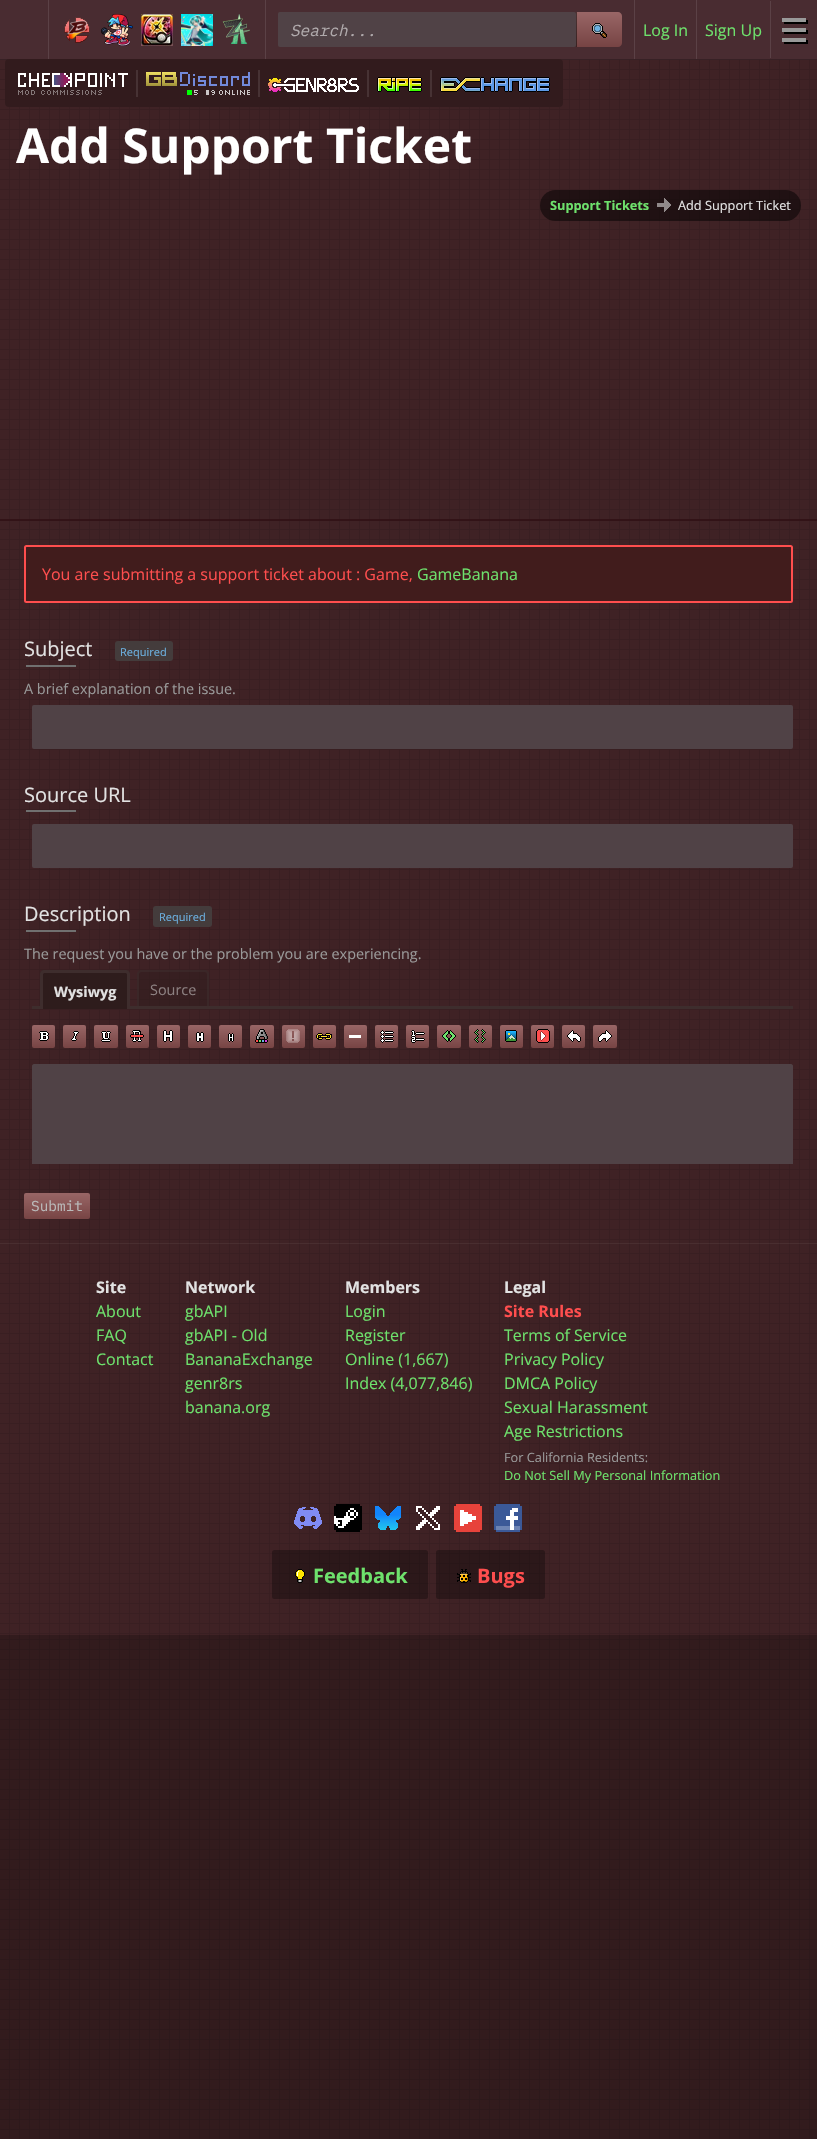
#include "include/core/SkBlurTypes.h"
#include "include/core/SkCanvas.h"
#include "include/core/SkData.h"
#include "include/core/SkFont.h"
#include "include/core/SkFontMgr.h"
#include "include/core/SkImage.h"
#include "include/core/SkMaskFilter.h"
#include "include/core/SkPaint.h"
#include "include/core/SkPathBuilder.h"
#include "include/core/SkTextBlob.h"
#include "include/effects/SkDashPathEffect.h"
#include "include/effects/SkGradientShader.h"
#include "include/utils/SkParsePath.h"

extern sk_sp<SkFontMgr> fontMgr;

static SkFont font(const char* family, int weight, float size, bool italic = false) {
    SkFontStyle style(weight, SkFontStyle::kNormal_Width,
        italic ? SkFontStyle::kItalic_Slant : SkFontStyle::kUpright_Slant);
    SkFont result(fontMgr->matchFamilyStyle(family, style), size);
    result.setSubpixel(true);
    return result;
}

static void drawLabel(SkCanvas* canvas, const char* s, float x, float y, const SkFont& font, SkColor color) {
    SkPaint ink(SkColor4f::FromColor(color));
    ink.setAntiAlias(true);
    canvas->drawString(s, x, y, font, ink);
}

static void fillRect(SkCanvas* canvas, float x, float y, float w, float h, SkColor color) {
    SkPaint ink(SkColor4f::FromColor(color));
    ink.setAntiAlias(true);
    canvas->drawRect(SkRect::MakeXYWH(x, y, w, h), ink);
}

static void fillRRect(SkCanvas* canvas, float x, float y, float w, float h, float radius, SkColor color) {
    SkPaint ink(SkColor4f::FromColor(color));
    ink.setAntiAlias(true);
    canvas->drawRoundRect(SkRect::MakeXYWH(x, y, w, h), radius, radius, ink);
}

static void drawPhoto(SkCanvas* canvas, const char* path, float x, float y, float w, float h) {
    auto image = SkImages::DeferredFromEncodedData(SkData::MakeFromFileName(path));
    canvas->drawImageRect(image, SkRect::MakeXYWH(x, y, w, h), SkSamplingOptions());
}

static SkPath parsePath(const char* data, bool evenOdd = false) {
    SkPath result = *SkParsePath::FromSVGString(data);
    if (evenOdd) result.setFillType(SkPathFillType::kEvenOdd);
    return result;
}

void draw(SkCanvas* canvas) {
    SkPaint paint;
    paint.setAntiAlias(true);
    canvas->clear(0xFF321B1D);
    drawPhoto(canvas, "assets/img1.png", 0, 1635, 817, 504);
    fillRect(canvas, 0, 0, 817, 59, 0xFF492C31);
    fillRect(canvas, 0, 59, 817, 1, 0xFF372125);
    fillRect(canvas, 48, 0, 1, 59, 0xFF5B4146);
    drawPhoto(canvas, "assets/img2.png", 64, 17, 26, 26);
    drawPhoto(canvas, "assets/img3.png", 101, 14, 32, 32);
    drawPhoto(canvas, "assets/img4.png", 141, 14, 32, 32);
    drawPhoto(canvas, "assets/img5.png", 181, 14, 32, 32);
    drawPhoto(canvas, "assets/img6.png", 222, 14, 28, 30);
    fillRect(canvas, 265, 0, 1, 59, 0xFF5B4146);
    fillRRect(canvas, 278, 12, 298, 35, 2, 0xFF504246);
    SkFont font1 = font("IBM Plex Mono", 400, 16, true);
    drawLabel(canvas, "Search...", 290, 36, font1, 0xFFB0AAAC);
    {
        const SkColor colors[] = {0xFF996666, 0xFF774444};
        const float stops[] = {0, 1};
        const SkPoint ends[] = {{600, 12}, {600, 47}};
        paint.setShader(SkGradientShader::MakeLinear(ends, colors, stops, 2, SkTileMode::kClamp));
        paint.setAlpha(255);
    }
    canvas->drawPath(parsePath("M576 12H618C620 12 622 14 622 16V43C622 45 620 47 618 47H576Z"), paint);
    fillRect(canvas, 576, 12, 1, 35, 0x80000000);
    drawPhoto(canvas, "assets/img7.png", 592, 23, 15, 15);
    fillRect(canvas, 634, 0, 1, 59, 0xFF5B4146);
    SkFont font2 = font("Open Sans", 400, 16);
    drawLabel(canvas, "Log In", 643, 36, font2, 0xFF6EE16C);
    fillRect(canvas, 696, 0, 1, 59, 0xFF5B4146);
    drawLabel(canvas, "Sign Up", 705, 36, font2, 0xFF6EE16C);
    fillRect(canvas, 770, 1, 1, 57, 0xFF5B4146);
    drawPhoto(canvas, "assets/img8.png", 782, 18, 26, 26);
    fillRect(canvas, 0, 60, 817, 1575, 0xFF3F2225);
    drawPhoto(canvas, "assets/img9.png", 0, 60, 817, 1184);
    SkFont font3 = font("Open Sans", 700, 48);
    drawLabel(canvas, "Add Support Ticket", 16, 163, font3, 0xFFFFFFFF);
    fillRRect(canvas, 540, 190, 261, 31, 15.5f, 0x80000000);
    SkFont font4 = font("Open Sans", 700, 12.75f);
    drawLabel(canvas, "Support Tickets", 550, 210, font4, 0xFF6EE16C);
    drawPhoto(canvas, "assets/img10.png", 657, 198, 14, 14);
    SkFont font5 = font("Open Sans", 400, 12.75f);
    drawLabel(canvas, "Add Support Ticket", 678, 210, font5, 0xFFE2E2E2);
    fillRect(canvas, 0, 519, 817, 2, 0xFF321317);
    fillRect(canvas, 0, 1243, 817, 1, 0x0DFFFFFF);
    paint.setShader(nullptr);
    paint.setColor(0xFF411C1C);
    canvas->drawRoundRect(SkRect::MakeXYWH(25, 546, 767, 56), 1.5f, 1.5f, paint);
    paint.setStroke(true);
    paint.setStrokeWidth(2);
    paint.setColor(0xFFFF4E4E);
    canvas->drawRoundRect(SkRect::MakeXYWH(25, 546, 767, 56), 1.5f, 1.5f, paint);
    drawLabel(canvas, "You are submitting a support ticket about : Game,", 42, 580, font2, 0xFFFF4E4E);
    drawLabel(canvas, "GameBanana", 417, 580, font2, 0xFF6EE16C);
    SkFont font6 = font("Open Sans", 400, 20);
    drawLabel(canvas, "Subject", 24, 656, font6, 0xFFE2E2E2);
    fillRRect(canvas, 115, 641, 58, 20, 3, 0xFF443C3C);
    SkFont font7 = font("Open Sans", 400, 11);
    drawLabel(canvas, "Required", 120, 656, font7, 0xFF6CB1E1);
    fillRect(canvas, 26, 665, 50, 2, 0xFF707070);
    SkFont font8 = font("Open Sans", 400, 14.4f);
    drawLabel(canvas, "A brief explanation of the issue.", 24, 694, font8, 0xFF999999);
    fillRRect(canvas, 32, 705, 761, 44, 2, 0xFF504246);
    drawLabel(canvas, "Source URL", 24, 802, font6, 0xFFE2E2E2);
    fillRect(canvas, 26, 810, 50, 2, 0xFF707070);
    fillRRect(canvas, 32, 824, 761, 44, 2, 0xFF504246);
    drawLabel(canvas, "Description", 24, 921, font6, 0xFFE2E2E2);
    fillRRect(canvas, 153, 906, 59, 21, 3, 0xFF443C3C);
    drawLabel(canvas, "Required", 159, 921, font7, 0xFF6CB1E1);
    fillRect(canvas, 26, 930, 50, 2, 0xFF707070);
    drawLabel(canvas, "The request you have or the problem you are experiencing.", 24, 959, font8, 0xFF999999);
    fillRect(canvas, 32, 1006, 761, 3, 0xFF3E2D2D);
    paint.setStroke(false);
    paint.setColor(0xFF2E1C1C);
    canvas->drawPath(parsePath("M44 970H126C128 970 130 972 130 974V1009H40V974C40 972 42 970 44 970Z"), paint);
    paint.setColor(0xFF3E2D2D);
    canvas->drawPath(parsePath("M44 970H126C128 970 130 972 130 974V1009H40V974C40 972 42 970 44 970ZM44 973H126L127 974V1009H43V974Z", true), paint);
    SkFont font9 = font("Open Sans", 700, 14.4f);
    drawLabel(canvas, "Wysiwyg", 54, 997, font9, 0xFFE2E2E2);
    paint.setColor(0x802E1C1C);
    canvas->drawPath(parsePath("M141 970H205C207 970 209 972 209 974V1006H137V974C137 972 139 970 141 970Z"), paint);
    paint.setColor(0x803E2D2D);
    canvas->drawPath(parsePath("M141 970H205C207 970 209 972 209 974V1006H137V974C137 972 139 970 141 970ZM141 972H205C206 972 207 973 207 974V1006H139V974C139 973 140 972 141 972Z", true), paint);
    drawLabel(canvas, "Source", 150, 995, font8, 0xFF8C8081);
    {
        const SkColor colors[] = {0xFF996666, 0xFF774444};
        const float stops[] = {0, 1};
        const SkPoint ends[] = {{44, 1025}, {44, 1048}};
        paint.setShader(SkGradientShader::MakeLinear(ends, colors, stops, 2, SkTileMode::kClamp));
        paint.setAlpha(255);
    }
    canvas->drawRoundRect(SkRect::MakeXYWH(32, 1025, 23, 23), 2, 2, paint);
    drawPhoto(canvas, "assets/img11.png", 39, 1031, 10, 10);
    {
        const SkColor colors[] = {0xFF996666, 0xFF774444};
        const float stops[] = {0, 1};
        const SkPoint ends[] = {{75, 1025}, {75, 1048}};
        paint.setShader(SkGradientShader::MakeLinear(ends, colors, stops, 2, SkTileMode::kClamp));
        paint.setAlpha(255);
    }
    canvas->drawRoundRect(SkRect::MakeXYWH(63, 1025, 23, 23), 2, 2, paint);
    drawPhoto(canvas, "assets/img12.png", 71, 1031, 8, 10);
    {
        const SkColor colors[] = {0xFF996666, 0xFF774444};
        const float stops[] = {0, 1};
        const SkPoint ends[] = {{106, 1025}, {106, 1048}};
        paint.setShader(SkGradientShader::MakeLinear(ends, colors, stops, 2, SkTileMode::kClamp));
        paint.setAlpha(255);
    }
    canvas->drawRoundRect(SkRect::MakeXYWH(94, 1025, 24, 23), 2, 2, paint);
    drawPhoto(canvas, "assets/img13.png", 101, 1031, 10, 11);
    {
        const SkColor colors[] = {0xFF996666, 0xFF774444};
        const float stops[] = {0, 1};
        const SkPoint ends[] = {{138, 1025}, {138, 1048}};
        paint.setShader(SkGradientShader::MakeLinear(ends, colors, stops, 2, SkTileMode::kClamp));
        paint.setAlpha(255);
    }
    canvas->drawRoundRect(SkRect::MakeXYWH(126, 1025, 23, 23), 2, 2, paint);
    drawPhoto(canvas, "assets/img14.png", 130, 1030, 14, 12);
    {
        const SkColor colors[] = {0xFF996666, 0xFF774444};
        const float stops[] = {0, 1};
        const SkPoint ends[] = {{169, 1025}, {169, 1048}};
        paint.setShader(SkGradientShader::MakeLinear(ends, colors, stops, 2, SkTileMode::kClamp));
        paint.setAlpha(255);
    }
    canvas->drawRoundRect(SkRect::MakeXYWH(157, 1025, 23, 23), 2, 2, paint);
    drawPhoto(canvas, "assets/img15.png", 163, 1030, 10, 12);
    {
        const SkColor colors[] = {0xFF996666, 0xFF774444};
        const float stops[] = {0, 1};
        const SkPoint ends[] = {{200, 1025}, {200, 1048}};
        paint.setShader(SkGradientShader::MakeLinear(ends, colors, stops, 2, SkTileMode::kClamp));
        paint.setAlpha(255);
    }
    canvas->drawRoundRect(SkRect::MakeXYWH(188, 1025, 23, 23), 2, 2, paint);
    drawPhoto(canvas, "assets/img16.png", 196, 1032, 8, 10);
    {
        const SkColor colors[] = {0xFF996666, 0xFF774444};
        const float stops[] = {0, 1};
        const SkPoint ends[] = {{231, 1025}, {231, 1048}};
        paint.setShader(SkGradientShader::MakeLinear(ends, colors, stops, 2, SkTileMode::kClamp));
        paint.setAlpha(255);
    }
    canvas->drawRoundRect(SkRect::MakeXYWH(219, 1025, 23, 23), 2, 2, paint);
    drawPhoto(canvas, "assets/img17.png", 228, 1033, 6, 9);
    {
        const SkColor colors[] = {0xFF996666, 0xFF774444};
        const float stops[] = {0, 1};
        const SkPoint ends[] = {{262, 1025}, {262, 1048}};
        paint.setShader(SkGradientShader::MakeLinear(ends, colors, stops, 2, SkTileMode::kClamp));
        paint.setAlpha(255);
    }
    canvas->drawRoundRect(SkRect::MakeXYWH(250, 1025, 24, 23), 2, 2, paint);
    drawPhoto(canvas, "assets/img18.png", 255, 1029, 13, 14);
    {
        const SkColor colors[] = {0xFF996666, 0xFF774444};
        const float stops[] = {0, 1};
        const SkPoint ends[] = {{294, 1025}, {294, 1048}};
        paint.setShader(SkGradientShader::MakeLinear(ends, colors, stops, 2, SkTileMode::kClamp));
        paint.setAlpha(255);
    }
    canvas->drawRoundRect(SkRect::MakeXYWH(282, 1025, 23, 23), 2, 2, paint);
    drawPhoto(canvas, "assets/img19.png", 286, 1029, 14, 14);
    {
        const SkColor colors[] = {0xFF996666, 0xFF774444};
        const float stops[] = {0, 1};
        const SkPoint ends[] = {{325, 1025}, {325, 1048}};
        paint.setShader(SkGradientShader::MakeLinear(ends, colors, stops, 2, SkTileMode::kClamp));
        paint.setAlpha(255);
    }
    canvas->drawRoundRect(SkRect::MakeXYWH(313, 1025, 23, 23), 2, 2, paint);
    drawPhoto(canvas, "assets/img20.png", 316, 1033, 16, 7);
    {
        const SkColor colors[] = {0xFF996666, 0xFF774444};
        const float stops[] = {0, 1};
        const SkPoint ends[] = {{356, 1025}, {356, 1048}};
        paint.setShader(SkGradientShader::MakeLinear(ends, colors, stops, 2, SkTileMode::kClamp));
        paint.setAlpha(255);
    }
    canvas->drawRoundRect(SkRect::MakeXYWH(344, 1025, 23, 23), 2, 2, paint);
    fillRect(canvas, 349, 1035, 12, 3, 0xFFFFFFFF);
    {
        const SkColor colors[] = {0xFF996666, 0xFF774444};
        const float stops[] = {0, 1};
        const SkPoint ends[] = {{387, 1025}, {387, 1048}};
        paint.setShader(SkGradientShader::MakeLinear(ends, colors, stops, 2, SkTileMode::kClamp));
        paint.setAlpha(255);
    }
    canvas->drawRoundRect(SkRect::MakeXYWH(375, 1025, 23, 23), 2, 2, paint);
    drawPhoto(canvas, "assets/img21.png", 380, 1030, 14, 13);
    {
        const SkColor colors[] = {0xFF996666, 0xFF774444};
        const float stops[] = {0, 1};
        const SkPoint ends[] = {{418, 1025}, {418, 1048}};
        paint.setShader(SkGradientShader::MakeLinear(ends, colors, stops, 2, SkTileMode::kClamp));
        paint.setAlpha(255);
    }
    canvas->drawRoundRect(SkRect::MakeXYWH(406, 1025, 23, 23), 2, 2, paint);
    drawPhoto(canvas, "assets/img22.png", 411, 1030, 14, 13);
    {
        const SkColor colors[] = {0xFF996666, 0xFF774444};
        const float stops[] = {0, 1};
        const SkPoint ends[] = {{449, 1025}, {449, 1048}};
        paint.setShader(SkGradientShader::MakeLinear(ends, colors, stops, 2, SkTileMode::kClamp));
        paint.setAlpha(255);
    }
    canvas->drawRoundRect(SkRect::MakeXYWH(437, 1025, 24, 23), 2, 2, paint);
    drawPhoto(canvas, "assets/img23.png", 442, 1030, 14, 12);
    {
        const SkColor colors[] = {0xFF996666, 0xFF774444};
        const float stops[] = {0, 1};
        const SkPoint ends[] = {{481, 1025}, {481, 1048}};
        paint.setShader(SkGradientShader::MakeLinear(ends, colors, stops, 2, SkTileMode::kClamp));
        paint.setAlpha(255);
    }
    canvas->drawRoundRect(SkRect::MakeXYWH(469, 1025, 23, 23), 2, 2, paint);
    drawPhoto(canvas, "assets/img24.png", 474, 1029, 12, 14);
    {
        const SkColor colors[] = {0xFF996666, 0xFF774444};
        const float stops[] = {0, 1};
        const SkPoint ends[] = {{512, 1025}, {512, 1048}};
        paint.setShader(SkGradientShader::MakeLinear(ends, colors, stops, 2, SkTileMode::kClamp));
        paint.setAlpha(255);
    }
    canvas->drawRoundRect(SkRect::MakeXYWH(500, 1025, 23, 23), 2, 2, paint);
    drawPhoto(canvas, "assets/img25.png", 505, 1030, 12, 12);
    {
        const SkColor colors[] = {0xFF996666, 0xFF774444};
        const float stops[] = {0, 1};
        const SkPoint ends[] = {{543, 1025}, {543, 1048}};
        paint.setShader(SkGradientShader::MakeLinear(ends, colors, stops, 2, SkTileMode::kClamp));
        paint.setAlpha(255);
    }
    canvas->drawRoundRect(SkRect::MakeXYWH(531, 1025, 23, 23), 2, 2, paint);
    drawPhoto(canvas, "assets/img26.png", 536, 1029, 14, 14);
    {
        const SkColor colors[] = {0xFF996666, 0xFF774444};
        const float stops[] = {0, 1};
        const SkPoint ends[] = {{574, 1025}, {574, 1048}};
        paint.setShader(SkGradientShader::MakeLinear(ends, colors, stops, 2, SkTileMode::kClamp));
        paint.setAlpha(255);
    }
    canvas->drawRoundRect(SkRect::MakeXYWH(562, 1025, 23, 23), 2, 2, paint);
    drawPhoto(canvas, "assets/img27.png", 567, 1030, 14, 12);
    {
        const SkColor colors[] = {0xFF996666, 0xFF774444};
        const float stops[] = {0, 1};
        const SkPoint ends[] = {{605, 1025}, {605, 1048}};
        paint.setShader(SkGradientShader::MakeLinear(ends, colors, stops, 2, SkTileMode::kClamp));
        paint.setAlpha(255);
    }
    canvas->drawRoundRect(SkRect::MakeXYWH(593, 1025, 24, 23), 2, 2, paint);
    drawPhoto(canvas, "assets/img28.png", 598, 1030, 14, 12);
    paint.setShader(nullptr);
    paint.setColor(0xFF504246);
    canvas->drawPath(parsePath("M34 1064H791C792 1064 793 1065 793 1066V1164H32V1066C32 1065 33 1064 34 1064Z"), paint);
    {
        const SkColor colors[] = {0xFF996666, 0xFF774444};
        const float stops[] = {0, 1};
        const SkPoint ends[] = {{57, 1193}, {57, 1219}};
        paint.setShader(SkGradientShader::MakeLinear(ends, colors, stops, 2, SkTileMode::kClamp));
        paint.setAlpha(255);
    }
    canvas->drawRoundRect(SkRect::MakeXYWH(24, 1193, 66, 26), 2, 2, paint);
    SkFont font10 = font("IBM Plex Mono", 400, 14.4f);
    drawLabel(canvas, "Submit", 31, 1211, font10, 0xFFBBBBBB);
    drawPhoto(canvas, "assets/img29.png", 0, 1244, 817, 391);
    SkFont font11 = font("Open Sans", 700, 16);
    drawLabel(canvas, "Site", 96, 1293, font11, 0xFFE2E2E2);
    drawLabel(canvas, "About", 96, 1317, font2, 0xFF6EE16C);
    drawLabel(canvas, "FAQ", 96, 1341, font2, 0xFF6EE16C);
    drawLabel(canvas, "Contact", 96, 1365, font2, 0xFF6EE16C);
    drawLabel(canvas, "Network", 185, 1293, font11, 0xFFE2E2E2);
    drawLabel(canvas, "gbAPI", 185, 1317, font2, 0xFF6EE16C);
    drawLabel(canvas, "gbAPI - Old", 185, 1341, font2, 0xFF6EE16C);
    drawLabel(canvas, "BananaExchange", 185, 1365, font2, 0xFF6EE16C);
    drawLabel(canvas, "genr8rs", 185, 1389, font2, 0xFF6EE16C);
    drawLabel(canvas, "banana.org", 185, 1413, font2, 0xFF6EE16C);
    drawLabel(canvas, "Members", 345, 1293, font11, 0xFFE2E2E2);
    drawLabel(canvas, "Login", 345, 1317, font2, 0xFF6EE16C);
    drawLabel(canvas, "Register", 345, 1341, font2, 0xFF6EE16C);
    drawLabel(canvas, "Online (1,667)", 345, 1365, font2, 0xFF6EE16C);
    drawLabel(canvas, "Index (4,077,846)", 345, 1389, font2, 0xFF6EE16C);
    drawLabel(canvas, "Legal", 504, 1293, font11, 0xFFE2E2E2);
    drawLabel(canvas, "Site Rules", 504, 1317, font11, 0xFFFF4E4E);
    drawLabel(canvas, "Terms of Service", 504, 1341, font2, 0xFF6EE16C);
    drawLabel(canvas, "Privacy Policy", 504, 1365, font2, 0xFF6EE16C);
    drawLabel(canvas, "DMCA Policy", 504, 1389, font2, 0xFF6EE16C);
    drawLabel(canvas, "Sexual Harassment", 504, 1413, font2, 0xFF6EE16C);
    drawLabel(canvas, "Age Restrictions", 504, 1437, font2, 0xFF6EE16C);
    drawLabel(canvas, "For California Residents:", 504, 1462, font5, 0xFF999999);
    drawLabel(canvas, "Do Not Sell My Personal Information", 504, 1480, font5, 0xFF6EE16C);
    drawPhoto(canvas, "assets/img30.png", 294, 1507, 28, 22);
    drawPhoto(canvas, "assets/img31.png", 334, 1504, 28, 28);
    drawPhoto(canvas, "assets/img32.png", 375, 1506, 26, 24);
    drawPhoto(canvas, "assets/img33.png", 416, 1506, 24, 24);
    drawPhoto(canvas, "assets/img34.png", 454, 1504, 28, 28);
    drawPhoto(canvas, "assets/img35.png", 494, 1504, 28, 28);
    fillRRect(canvas, 272, 1550, 156, 49, 2.5f, 0x4D000000);
    drawPhoto(canvas, "assets/img36.png", 295, 1569, 10, 14);
    SkFont font12 = font("Open Sans", 700, 20);
    drawLabel(canvas, "Feedback", 313, 1583, font12, 0xFF6EE16C);
    fillRRect(canvas, 436, 1550, 109, 49, 2.5f, 0x4D000000);
    drawPhoto(canvas, "assets/img37.png", 457, 1569, 14, 14);
    drawLabel(canvas, "Bugs", 477, 1583, font12, 0xFFFF4E4E);
    fillRRect(canvas, 5, 59, 558, 48, 4, 0xFF321B1D);
    drawPhoto(canvas, "assets/img38.png", 18, 73, 110, 22);
    fillRect(canvas, 136, 70, 2, 27, 0xFF473234);
    drawPhoto(canvas, "assets/img39.png", 146, 72, 104, 14);
    fillRect(canvas, 187, 90, 5, 5, 0xFF00FF03);
    drawPhoto(canvas, "assets/img40.png", 194, 90, 4, 5);
    fillRect(canvas, 206, 90, 3, 5, 0xFFCCC6C7);
    drawPhoto(canvas, "assets/img41.png", 211, 90, 4, 5);
    drawPhoto(canvas, "assets/img42.png", 219, 90, 31, 5);
    fillRect(canvas, 258, 70, 2, 27, 0xFF473234);
    drawPhoto(canvas, "assets/img43.png", 268, 78, 91, 14);
    fillRect(canvas, 367, 70, 2, 27, 0xFF473234);
    drawPhoto(canvas, "assets/img44.png", 377, 77, 45, 15);
    fillRect(canvas, 430, 70, 2, 27, 0xFF473234);
    drawPhoto(canvas, "assets/img45.png", 440, 77, 110, 15);
}
